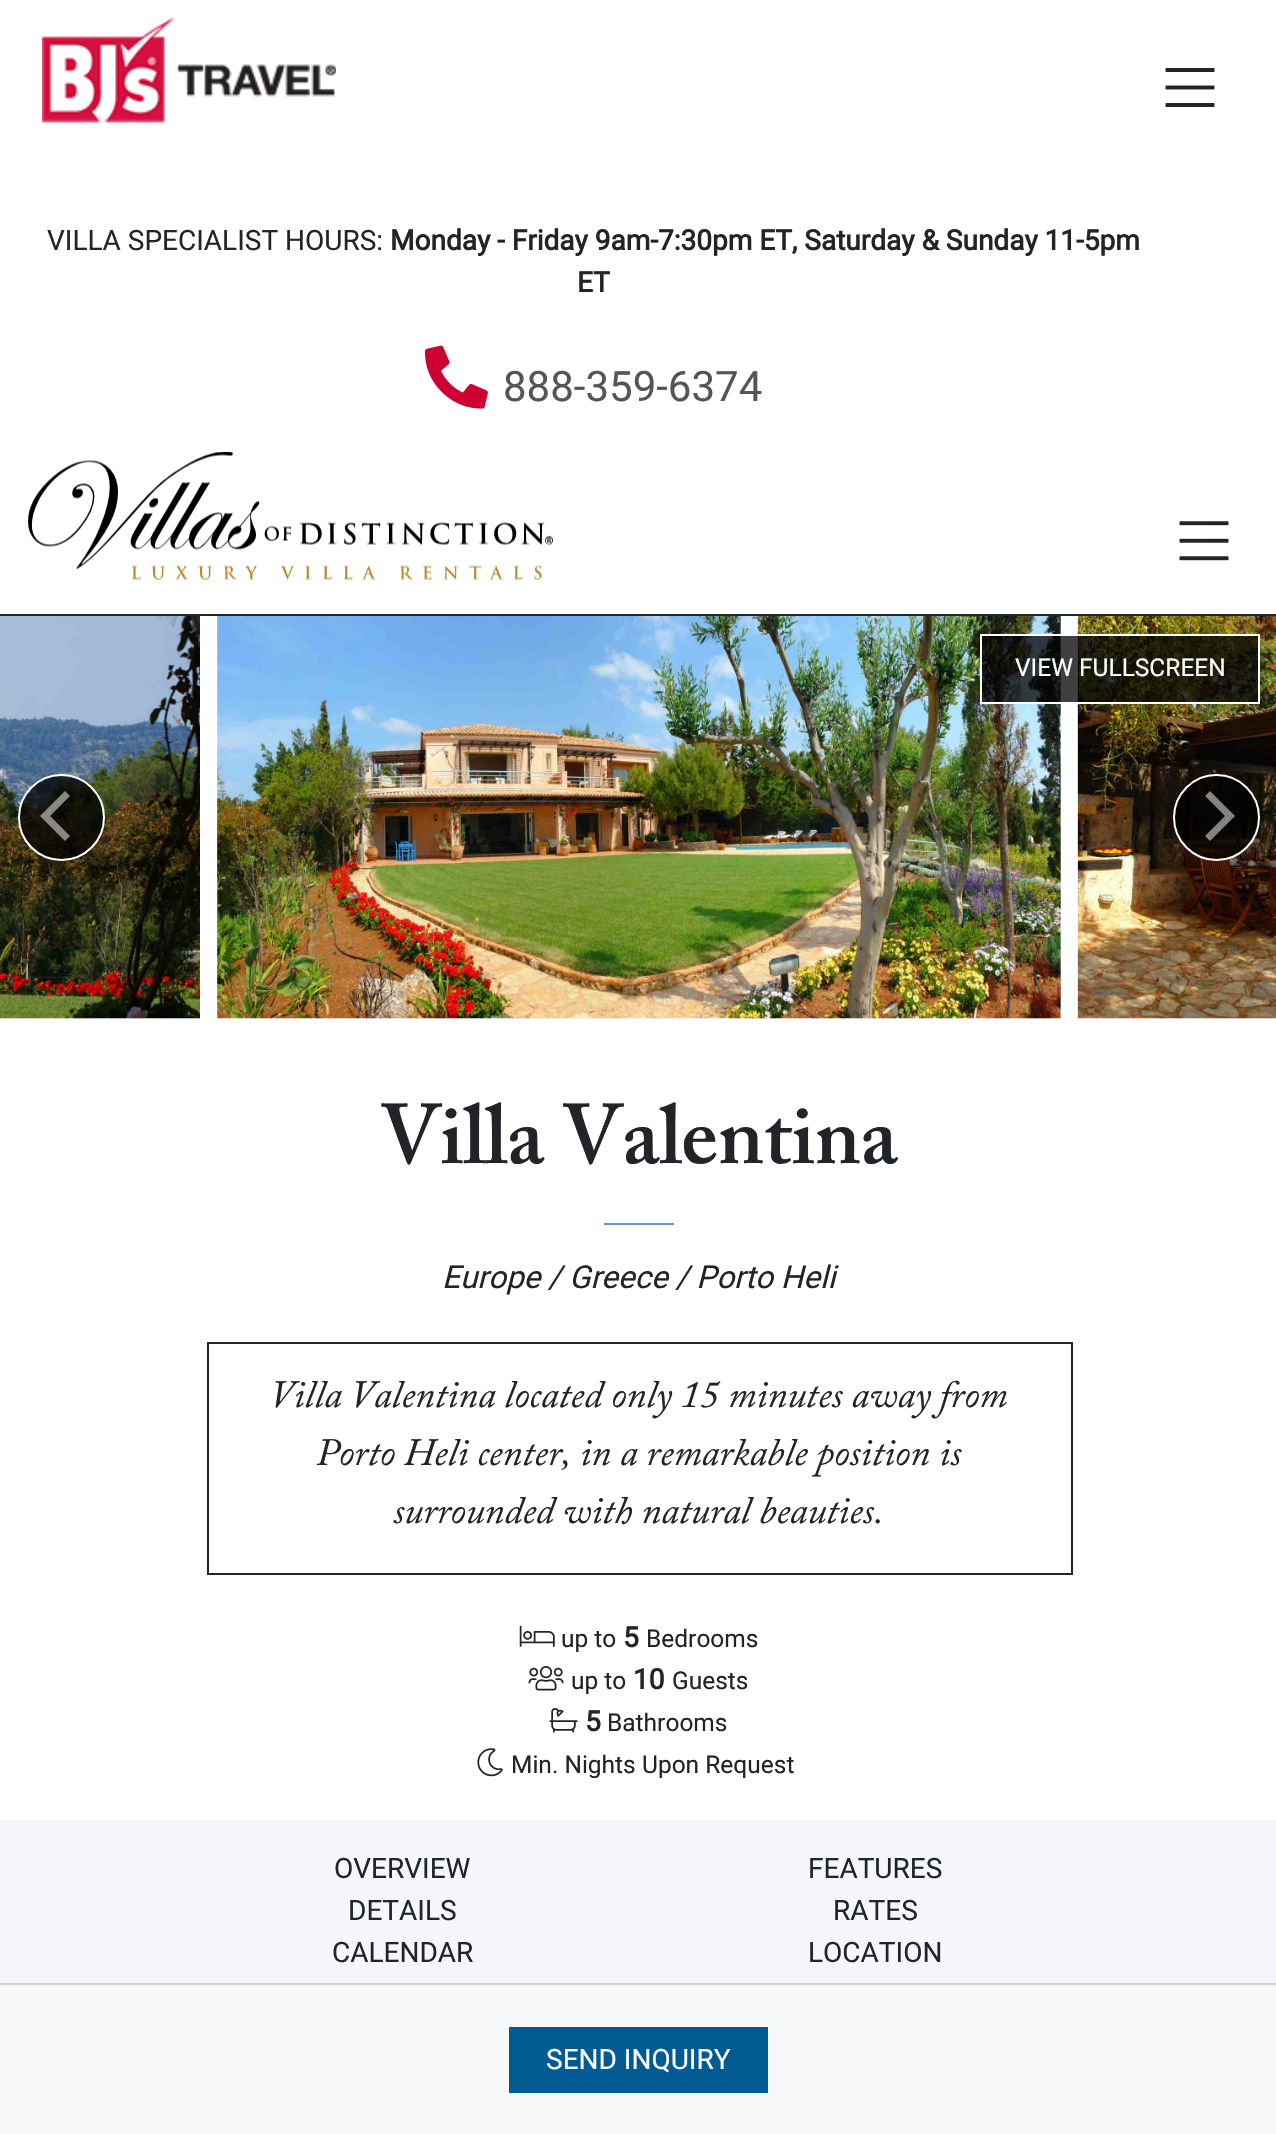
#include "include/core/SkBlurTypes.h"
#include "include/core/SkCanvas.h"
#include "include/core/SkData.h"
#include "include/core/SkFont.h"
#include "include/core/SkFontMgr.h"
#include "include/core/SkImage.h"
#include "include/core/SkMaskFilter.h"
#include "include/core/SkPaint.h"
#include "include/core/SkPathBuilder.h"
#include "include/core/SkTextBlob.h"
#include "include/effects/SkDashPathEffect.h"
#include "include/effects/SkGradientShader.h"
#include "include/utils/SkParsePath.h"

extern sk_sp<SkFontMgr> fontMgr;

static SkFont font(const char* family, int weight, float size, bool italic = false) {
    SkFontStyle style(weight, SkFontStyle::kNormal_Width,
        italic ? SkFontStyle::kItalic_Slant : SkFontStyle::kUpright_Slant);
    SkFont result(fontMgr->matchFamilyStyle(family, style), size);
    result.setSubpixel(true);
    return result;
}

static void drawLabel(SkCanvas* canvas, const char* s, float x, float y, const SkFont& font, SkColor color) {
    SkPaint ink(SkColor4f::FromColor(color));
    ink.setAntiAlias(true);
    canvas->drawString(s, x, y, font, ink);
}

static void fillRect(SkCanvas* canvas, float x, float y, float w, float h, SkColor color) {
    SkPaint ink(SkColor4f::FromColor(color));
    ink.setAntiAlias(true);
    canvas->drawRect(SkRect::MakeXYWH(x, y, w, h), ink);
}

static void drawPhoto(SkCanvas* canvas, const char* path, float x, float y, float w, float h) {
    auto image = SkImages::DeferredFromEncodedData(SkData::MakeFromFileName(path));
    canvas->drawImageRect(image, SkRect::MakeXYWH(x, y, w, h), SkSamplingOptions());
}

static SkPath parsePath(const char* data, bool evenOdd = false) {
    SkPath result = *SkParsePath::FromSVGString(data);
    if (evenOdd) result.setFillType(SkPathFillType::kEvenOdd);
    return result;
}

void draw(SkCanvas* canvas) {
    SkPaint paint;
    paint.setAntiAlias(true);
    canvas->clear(0xFFFFFFFF);
    fillRect(canvas, 0, 614, 1276, 2, 0xFF212529);
    drawPhoto(canvas, "assets/img1.png", 42, 17, 294, 106);
    drawPhoto(canvas, "assets/img2.png", 1165, 68, 50, 39);
    SkFont font1 = font("Roboto", 400, 28);
    drawLabel(canvas, "VILLA SPECIALIST HOURS:", 47, 250, font1, 0xFF212529);
    SkFont font2 = font("Roboto", 700, 28);
    drawLabel(canvas, "Monday - Friday 9am-7:30pm ET, Saturday & Sunday 11-5pm", 390, 250, font2, 0xFF212529);
    drawLabel(canvas, "ET", 577, 292, font2, 0xFF212529);
    drawPhoto(canvas, "assets/img3.png", 424, 345, 64, 64);
    SkFont font3 = font("Roboto", 400, 42);
    drawLabel(canvas, "888-359-6374", 503, 401, font3, 0xFF555555);
    drawPhoto(canvas, "assets/img4.png", 28, 452, 525, 128);
    drawPhoto(canvas, "assets/img5.png", 1179, 521, 50, 40);
    fillRect(canvas, 0, 1018, 200, 1, 0xFFF5F6FA);
    drawPhoto(canvas, "assets/img6.png", 0, 616, 200, 403);
    fillRect(canvas, 217, 616, 844, 403, 0xFFF5F6FA);
    drawPhoto(canvas, "assets/img7.png", 217, 616, 844, 403);
    fillRect(canvas, 1078, 1018, 198, 1, 0xFFF5F6FA);
    drawPhoto(canvas, "assets/img8.png", 1077, 616, 199, 403);
    paint.setColor(0xBF000000);
    canvas->drawRect(SkRect::MakeXYWH(981, 635, 278, 68), paint);
    paint.setStroke(true);
    paint.setStrokeWidth(2);
    paint.setColor(0xFFFFFFFF);
    canvas->drawRect(SkRect::MakeXYWH(981, 635, 278, 68), paint);
    SkFont font4 = font("Roboto", 400, 24.5f);
    drawLabel(canvas, "VIEW FULLSCREEN", 1015, 676, font4, 0xFFFFFFFF);
    paint.setStroke(false);
    paint.setColor(0xBF000000);
    canvas->drawCircle(61.5f, 817.5f, 42.5f, paint);
    paint.setStroke(true);
    paint.setColor(0xFFFFFFFF);
    canvas->drawCircle(61.5f, 817.5f, 42.5f, paint);
    paint.setStroke(false);
    paint.setColor(0x80FFFFFF);
    canvas->drawPath(parsePath("M40 816L65 841L70 836L50 816L70 796L65 791Z"), paint);
    paint.setColor(0xBF000000);
    canvas->drawCircle(1216.5f, 817.5f, 42.5f, paint);
    paint.setStroke(true);
    paint.setColor(0xFFFFFFFF);
    canvas->drawCircle(1216.5f, 817.5f, 42.5f, paint);
    paint.setStroke(false);
    paint.setColor(0x80FFFFFF);
    canvas->drawPath(parsePath("M1235 816L1210 791L1205 796L1225 816L1205 836L1210 841Z"), paint);
    SkFont font5 = font("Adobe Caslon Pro", 600, 84);
    drawLabel(canvas, "Villa Valentina", 380, 1163, font5, 0xFF212529);
    fillRect(canvas, 604, 1223, 70, 2, 0xFF6495ED);
    SkFont font6 = font("Roboto", 400, 31.5f, true);
    drawLabel(canvas, "Europe / Greece / Porto Heli", 442, 1288, font6, 0xFF212529);
    paint.setStroke(true);
    paint.setColor(0xFF212529);
    canvas->drawRect(SkRect::MakeXYWH(208, 1343, 864, 231), paint);
    SkFont font7 = font("Adobe Caslon Pro", 400, 38.5f, true);
    drawLabel(canvas, "Villa Valentina located only 15 minutes away from", 270, 1407, font7, 0xFF212529);
    drawLabel(canvas, "Porto Heli center, in a remarkable position is", 316, 1465, font7, 0xFF212529);
    drawLabel(canvas, "surrounded with natural beauties.", 393, 1523, font7, 0xFF212529);
    drawPhoto(canvas, "assets/img9.png", 519, 1625, 36, 22);
    drawLabel(canvas, "up to", 561, 1647, font4, 0xFF212529);
    drawLabel(canvas, "5", 623, 1647, font2, 0xFF212529);
    drawLabel(canvas, "Bedrooms", 646, 1647, font4, 0xFF212529);
    drawPhoto(canvas, "assets/img10.png", 528, 1666, 36, 25);
    drawLabel(canvas, "up to", 571, 1689, font4, 0xFF212529);
    drawLabel(canvas, "10", 633, 1689, font2, 0xFF212529);
    drawLabel(canvas, "Guests", 672, 1689, font4, 0xFF212529);
    drawPhoto(canvas, "assets/img11.png", 549, 1708, 29, 25);
    drawLabel(canvas, "5", 585, 1731, font2, 0xFF212529);
    drawLabel(canvas, "Bathrooms", 607, 1731, font4, 0xFF212529);
    drawPhoto(canvas, "assets/img12.png", 477, 1748, 26, 29);
    drawLabel(canvas, "Min. Nights", 511, 1773, font4, 0xFF212529);
    drawLabel(canvas, "Upon Request", 642, 1773, font4, 0xFF212529);
    fillRect(canvas, 0, 1820, 1276, 163, 0xFFF5F6F9);
    drawLabel(canvas, "OVERVIEW", 334, 1878, font1, 0xFF212529);
    drawLabel(canvas, "FEATURES", 808, 1878, font1, 0xFF212529);
    drawLabel(canvas, "DETAILS", 348, 1920, font1, 0xFF212529);
    drawLabel(canvas, "RATES", 833, 1920, font1, 0xFF212529);
    drawLabel(canvas, "CALENDAR", 332, 1962, font1, 0xFF212529);
    drawLabel(canvas, "LOCATION", 808, 1962, font1, 0xFF212529);
    fillRect(canvas, 0, 1983, 1276, 2, 0xFFD0D1D4);
    fillRect(canvas, 0, 1985, 1276, 149, 0xFFF6F7F9);
    fillRect(canvas, 509, 2027, 259, 66, 0xFF015B93);
    drawLabel(canvas, "SEND INQUIRY", 546, 2069, font1, 0xFFFFFFFF);
}
